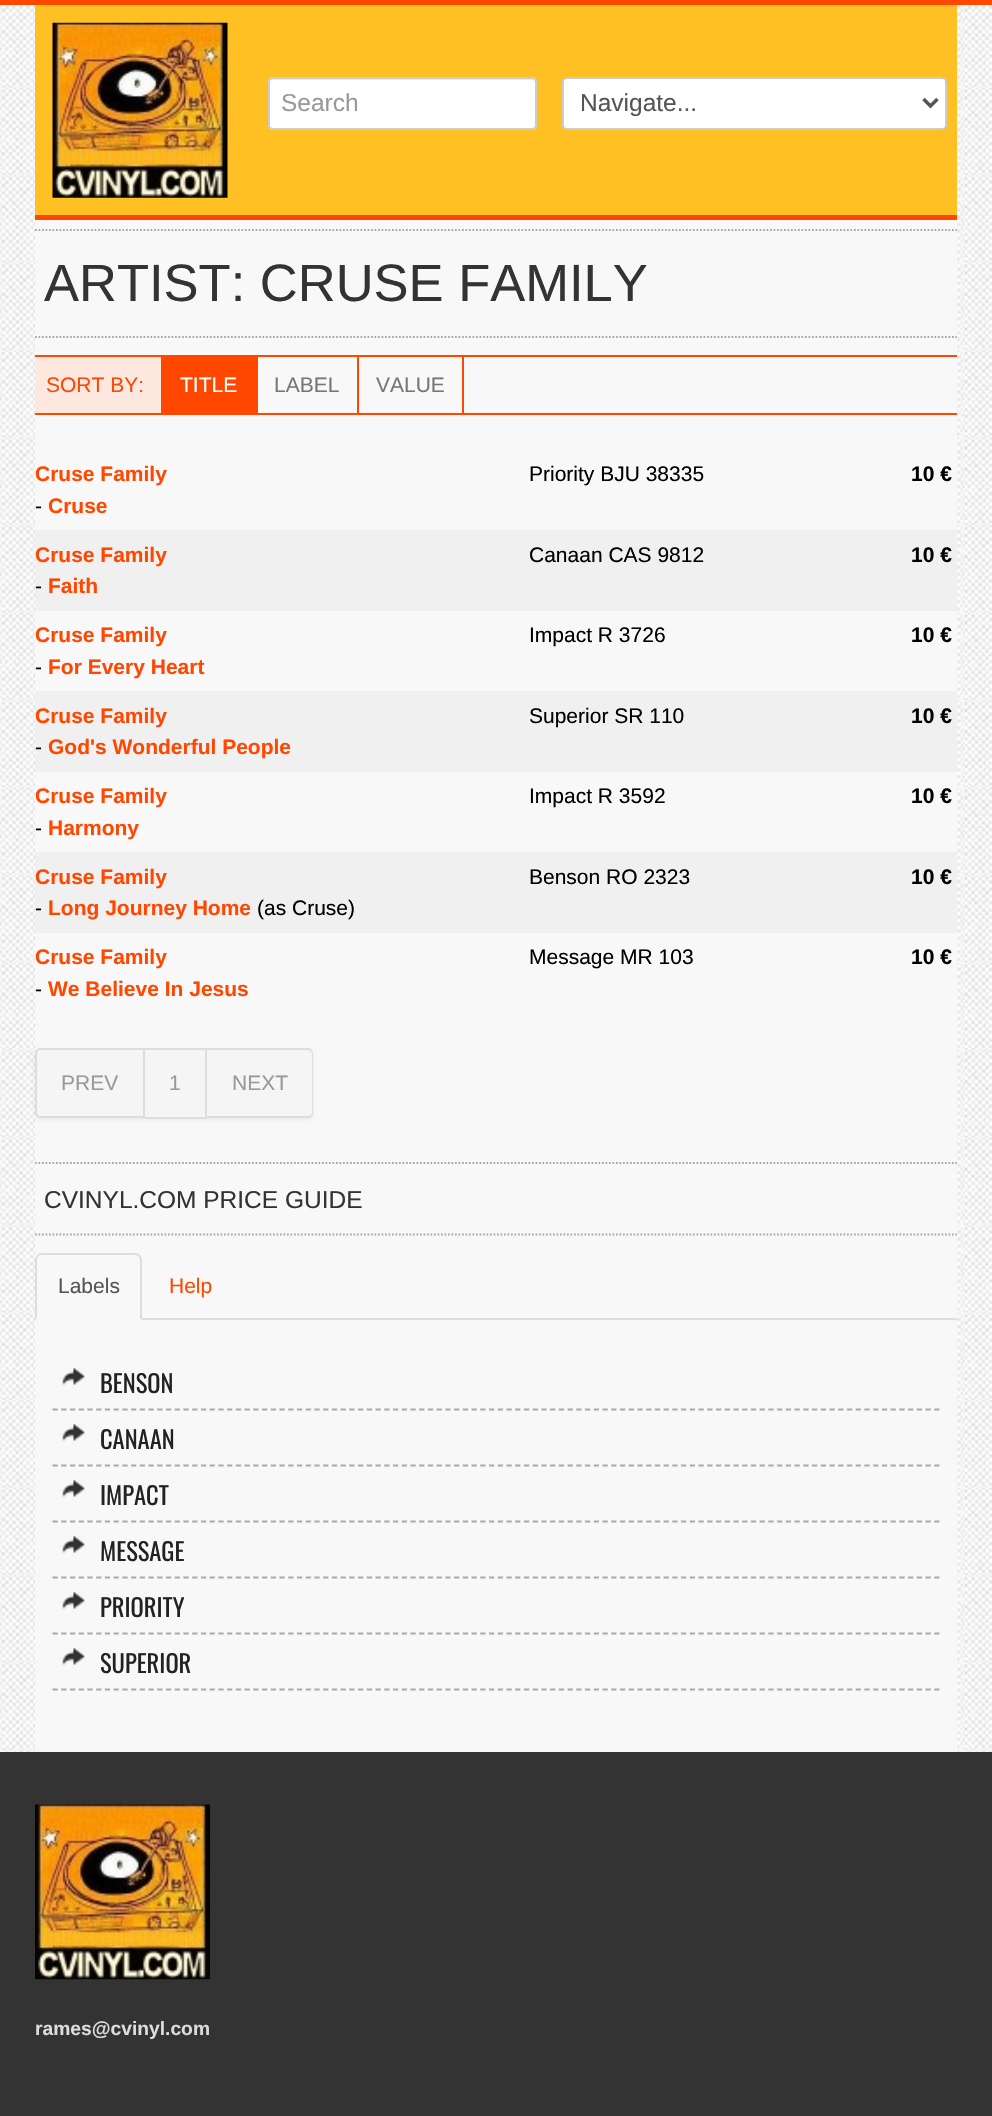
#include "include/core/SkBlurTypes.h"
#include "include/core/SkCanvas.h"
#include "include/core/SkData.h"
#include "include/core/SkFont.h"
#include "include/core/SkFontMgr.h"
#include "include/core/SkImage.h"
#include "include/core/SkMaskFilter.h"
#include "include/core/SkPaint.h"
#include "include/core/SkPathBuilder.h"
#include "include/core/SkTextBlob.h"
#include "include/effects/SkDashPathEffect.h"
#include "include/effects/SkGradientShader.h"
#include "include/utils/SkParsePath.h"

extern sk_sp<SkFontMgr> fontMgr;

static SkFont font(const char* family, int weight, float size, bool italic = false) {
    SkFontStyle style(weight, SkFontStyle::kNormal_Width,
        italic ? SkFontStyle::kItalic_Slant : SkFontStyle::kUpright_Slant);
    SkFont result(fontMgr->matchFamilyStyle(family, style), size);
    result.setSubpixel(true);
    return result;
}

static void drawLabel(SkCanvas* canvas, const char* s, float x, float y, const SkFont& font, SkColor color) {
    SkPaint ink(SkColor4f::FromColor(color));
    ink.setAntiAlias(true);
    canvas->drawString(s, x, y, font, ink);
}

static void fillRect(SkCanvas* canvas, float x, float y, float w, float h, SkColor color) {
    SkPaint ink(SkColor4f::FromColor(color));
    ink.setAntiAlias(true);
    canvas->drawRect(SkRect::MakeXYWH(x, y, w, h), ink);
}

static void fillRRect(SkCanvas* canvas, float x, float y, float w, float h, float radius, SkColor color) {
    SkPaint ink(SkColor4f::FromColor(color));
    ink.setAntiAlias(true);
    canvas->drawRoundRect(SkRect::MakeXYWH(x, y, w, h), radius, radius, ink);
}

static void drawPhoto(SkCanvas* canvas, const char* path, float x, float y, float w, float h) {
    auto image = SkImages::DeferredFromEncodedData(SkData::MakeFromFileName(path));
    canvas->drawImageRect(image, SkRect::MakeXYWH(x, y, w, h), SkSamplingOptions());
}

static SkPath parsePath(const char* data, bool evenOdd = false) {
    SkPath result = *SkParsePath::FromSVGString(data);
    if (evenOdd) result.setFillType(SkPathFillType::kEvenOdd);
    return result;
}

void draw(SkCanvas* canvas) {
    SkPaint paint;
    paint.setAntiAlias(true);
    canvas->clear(0xFFFFFFFF);
    drawPhoto(canvas, "assets/img1.png", 0, 5, 992, 1747);
    fillRect(canvas, 0, 0, 992, 5, 0xFFFF4700);
    fillRect(canvas, 35, 220, 922, 1532, 0xFFF8F8F8);
    fillRect(canvas, 35, 5, 922, 210, 0xFFFFC023);
    drawPhoto(canvas, "assets/img2.png", 52, 22, 176, 176);
    fillRRect(canvas, 268, 77, 269, 53, 5, 0xFFFFFFFF);
    paint.setColor(0xFFECECEC);
    canvas->drawPath(parsePath("M273 80H532C534 80 536 82 536 84C536 81 535 79 532 79H274C271 79 270 81 270 84C270 82 271 80 273 80Z"), paint);
    paint.setStroke(true);
    paint.setStrokeWidth(2);
    paint.setColor(0xFFCCCCCC);
    canvas->drawRoundRect(SkRect::MakeXYWH(269, 78, 267, 51), 4, 4, paint);
    SkFont font1 = font("Liberation Sans", 400, 24.5f);
    drawLabel(canvas, "Search", 281, 111, font1, 0xFF999999);
    paint.setStroke(false);
    paint.setColor(0xFFFFFFFF);
    canvas->drawRoundRect(SkRect::MakeXYWH(563, 78, 383, 51), 4, 4, paint);
    paint.setStroke(true);
    paint.setColor(0xFFCCCCCC);
    canvas->drawRoundRect(SkRect::MakeXYWH(563, 78, 383, 51), 4, 4, paint);
    paint.setStrokeWidth(3.5f);
    paint.setColor(0xFF555555);
    canvas->drawPath(parsePath("M923.5 99L930.5 106L937.5 99"), paint);
    drawLabel(canvas, "Navigate...", 580, 111, font1, 0xFF555555);
    fillRect(canvas, 35, 215, 922, 5, 0xFFFF4700);
    paint.setStrokeWidth(1.8f);
    paint.setColor(0xFFA9A9A9);
    paint.setPathEffect(SkDashPathEffect::Make({{1.75f, 1.75f}}, 0));
    canvas->drawPath(parsePath("M35 230H957"), paint);
    paint.setPathEffect(nullptr);
    paint.setPathEffect(SkDashPathEffect::Make({{1.75f, 1.75f}}, 0));
    canvas->drawPath(parsePath("M35 337H957"), paint);
    paint.setPathEffect(nullptr);
    SkFont font2 = font("Liberation Sans", 400, 52.5f);
    drawLabel(canvas, "ARTIST: CRUSE FAMILY", 44, 301, font2, 0xFF333333);
    fillRect(canvas, 35, 355, 922, 2, 0xFFFF4700);
    fillRect(canvas, 35, 413, 922, 2, 0xFFFF4700);
    fillRect(canvas, 35, 357, 126, 56, 0xFFFDE8E0);
    fillRect(canvas, 161, 357, 2, 56, 0xFFFF4700);
    SkFont font3 = font("Liberation Sans", 400, 21);
    drawLabel(canvas, "SORT BY:", 46, 392, font3, 0xFFFF4700);
    fillRect(canvas, 163, 357, 95, 56, 0xFFFF4700);
    drawLabel(canvas, "TITLE", 180, 392, font3, 0xFFFFFFFF);
    fillRect(canvas, 357, 357, 2, 56, 0xFFFF4700);
    drawLabel(canvas, "LABEL", 274, 392, font3, 0xFF777777);
    fillRect(canvas, 462, 357, 2, 56, 0xFFFF4700);
    drawLabel(canvas, "VALUE", 376, 392, font3, 0xFF777777);
    SkFont font4 = font("Liberation Sans", 700, 21);
    drawLabel(canvas, "Cruse Family", 35, 481, font4, 0xFFFF4700);
    drawLabel(canvas, "Priority BJU 38335", 529, 481, font3, 0xFF000000);
    drawLabel(canvas, "10 €", 911, 481, font4, 0xFF000000);
    drawLabel(canvas, "-", 35, 513, font3, 0xFF000000);
    drawLabel(canvas, "Cruse", 48, 513, font4, 0xFFFF4700);
    fillRect(canvas, 35, 530, 922, 81, 0xFFF0F0F0);
    drawLabel(canvas, "Cruse Family", 35, 562, font4, 0xFFFF4700);
    drawLabel(canvas, "Canaan CAS 9812", 529, 562, font3, 0xFF000000);
    drawLabel(canvas, "10 €", 911, 562, font4, 0xFF000000);
    drawLabel(canvas, "-", 35, 593, font3, 0xFF000000);
    drawLabel(canvas, "Faith", 48, 593, font4, 0xFFFF4700);
    drawLabel(canvas, "Cruse Family", 35, 642, font4, 0xFFFF4700);
    drawLabel(canvas, "Impact R 3726", 529, 642, font3, 0xFF000000);
    drawLabel(canvas, "10 €", 911, 642, font4, 0xFF000000);
    drawLabel(canvas, "-", 35, 674, font3, 0xFF000000);
    drawLabel(canvas, "For Every Heart", 48, 674, font4, 0xFFFF4700);
    fillRect(canvas, 35, 691, 922, 81, 0xFFF0F0F0);
    drawLabel(canvas, "Cruse Family", 35, 723, font4, 0xFFFF4700);
    drawLabel(canvas, "Superior SR 110", 529, 723, font3, 0xFF000000);
    drawLabel(canvas, "10 €", 911, 723, font4, 0xFF000000);
    drawLabel(canvas, "-", 35, 754, font3, 0xFF000000);
    drawLabel(canvas, "God's Wonderful People", 48, 754, font4, 0xFFFF4700);
    drawLabel(canvas, "Cruse Family", 35, 803, font4, 0xFFFF4700);
    drawLabel(canvas, "Impact R 3592", 529, 803, font3, 0xFF000000);
    drawLabel(canvas, "10 €", 911, 803, font4, 0xFF000000);
    drawLabel(canvas, "-", 35, 835, font3, 0xFF000000);
    drawLabel(canvas, "Harmony", 48, 835, font4, 0xFFFF4700);
    fillRect(canvas, 35, 852, 922, 81, 0xFFF0F0F0);
    drawLabel(canvas, "Cruse Family", 35, 884, font4, 0xFFFF4700);
    drawLabel(canvas, "Benson RO 2323", 529, 884, font3, 0xFF000000);
    drawLabel(canvas, "10 €", 911, 884, font4, 0xFF000000);
    drawLabel(canvas, "-", 35, 915, font3, 0xFF000000);
    drawLabel(canvas, "Long Journey Home", 48, 915, font4, 0xFFFF4700);
    drawLabel(canvas, "(as Cruse)", 257, 915, font3, 0xFF000000);
    drawLabel(canvas, "Cruse Family", 35, 964, font4, 0xFFFF4700);
    drawLabel(canvas, "Message MR 103", 529, 964, font3, 0xFF000000);
    drawLabel(canvas, "10 €", 911, 964, font4, 0xFF000000);
    drawLabel(canvas, "-", 35, 996, font3, 0xFF000000);
    drawLabel(canvas, "We Believe In Jesus", 48, 996, font4, 0xFFFF4700);
    paint.setStroke(false);
    paint.setColor(0x0D000000);
    paint.setMaskFilter(SkMaskFilter::MakeBlur(kNormal_SkBlurStyle, 2));
    canvas->drawRoundRect(SkRect::MakeXYWH(35, 1050, 278, 70), 5, 5, paint);
    paint.setMaskFilter(nullptr);
    paint.setColor(0xFFF5F5F5);
    canvas->drawPath(parsePath("M40 1049H144V1117H40C38 1117 36 1115 36 1113V1053C36 1051 38 1049 40 1049Z"), paint);
    paint.setStroke(true);
    paint.setStrokeWidth(2);
    paint.setColor(0xFFDDDDDD);
    canvas->drawPath(parsePath("M40 1049H144V1117H40C38 1117 36 1115 36 1113V1053C36 1051 38 1049 40 1049Z"), paint);
    drawLabel(canvas, "PREV", 61, 1090, font3, 0xFF999999);
    fillRect(canvas, 145, 1050, 60, 67, 0xFFF5F5F5);
    fillRect(canvas, 145, 1048, 62, 2, 0xFFDDDDDD);
    fillRect(canvas, 205, 1048, 2, 70, 0xFFDDDDDD);
    fillRect(canvas, 145, 1117, 62, 2, 0xFFDDDDDD);
    drawLabel(canvas, "1", 169, 1090, font3, 0xFF999999);
    paint.setStroke(false);
    paint.setColor(0xFFF5F5F5);
    canvas->drawPath(parsePath("M207 1050H308C310 1050 312 1052 312 1054V1113C312 1115 310 1117 308 1117H207Z"), paint);
    paint.setColor(0xFFDDDDDD);
    canvas->drawPath(parsePath("M206 1048H308C311 1048 313 1051 313 1054V1113C313 1116 311 1118 308 1118H206ZM206 1050H308C310 1050 312 1052 312 1054V1113C312 1115 310 1116 308 1116H206Z", true), paint);
    drawLabel(canvas, "NEXT", 232, 1090, font3, 0xFF999999);
    paint.setStroke(true);
    paint.setStrokeWidth(1.8f);
    paint.setColor(0xFFA9A9A9);
    paint.setPathEffect(SkDashPathEffect::Make({{1.75f, 1.75f}}, 0));
    canvas->drawPath(parsePath("M35 1163H957"), paint);
    paint.setPathEffect(nullptr);
    paint.setPathEffect(SkDashPathEffect::Make({{1.75f, 1.75f}}, 0));
    canvas->drawPath(parsePath("M35 1234.5H957"), paint);
    paint.setPathEffect(nullptr);
    drawLabel(canvas, "CVINYL.COM PRICE GUIDE", 44, 1208, font1, 0xFF333333);
    fillRect(canvas, 142, 1318, 815, 2, 0xFFDDDDDD);
    paint.setStroke(false);
    paint.setColor(0xFFDDDDDD);
    canvas->drawPath(parsePath("M42 1253C40 1253 38 1254 37 1255L38 1256L41 1255H136L138 1256L140 1255C139 1254 137 1253 135 1253Z"), paint);
    canvas->drawPath(parsePath("M140 1255L142 1258V1320L140 1318V1260C140 1258 139 1257 138 1256Z"), paint);
    canvas->drawPath(parsePath("M35 1320L37 1318V1260C37 1258 38 1257 38 1256L37 1255C36 1256 35 1258 35 1260Z"), paint);
    drawLabel(canvas, "Labels", 58, 1293, font3, 0xFF555555);
    drawLabel(canvas, "Help", 169, 1293, font3, 0xFFFF4700);
    paint.setStroke(true);
    paint.setColor(0xFFA9A9A9);
    paint.setPathEffect(SkDashPathEffect::Make({{5.25f, 3.48f}}, 0));
    canvas->drawPath(parsePath("M52.5 1409.5H940"), paint);
    paint.setPathEffect(nullptr);
    drawPhoto(canvas, "assets/img3.png", 62, 1368, 23, 18);
    SkFont font5 = font("Oswald", 400, 24.5f);
    drawLabel(canvas, "BENSON", 100, 1393, font5, 0xFF222222);
    paint.setPathEffect(SkDashPathEffect::Make({{5.25f, 3.48f}}, 0));
    canvas->drawPath(parsePath("M52.5 1465.5H940"), paint);
    paint.setPathEffect(nullptr);
    drawPhoto(canvas, "assets/img3.png", 62, 1424, 23, 18);
    drawLabel(canvas, "CANAAN", 100, 1449, font5, 0xFF222222);
    paint.setPathEffect(SkDashPathEffect::Make({{5.25f, 3.48f}}, 0));
    canvas->drawPath(parsePath("M52.5 1521.5H940"), paint);
    paint.setPathEffect(nullptr);
    drawPhoto(canvas, "assets/img3.png", 62, 1480, 23, 18);
    drawLabel(canvas, "IMPACT", 100, 1505, font5, 0xFF222222);
    paint.setPathEffect(SkDashPathEffect::Make({{5.25f, 3.48f}}, 0));
    canvas->drawPath(parsePath("M52.5 1577.5H940"), paint);
    paint.setPathEffect(nullptr);
    drawPhoto(canvas, "assets/img3.png", 62, 1536, 23, 18);
    drawLabel(canvas, "MESSAGE", 100, 1561, font5, 0xFF222222);
    paint.setPathEffect(SkDashPathEffect::Make({{5.25f, 3.48f}}, 0));
    canvas->drawPath(parsePath("M52.5 1633.5H940"), paint);
    paint.setPathEffect(nullptr);
    drawPhoto(canvas, "assets/img3.png", 62, 1592, 23, 18);
    drawLabel(canvas, "PRIORITY", 100, 1617, font5, 0xFF222222);
    paint.setPathEffect(SkDashPathEffect::Make({{5.25f, 3.48f}}, 0));
    canvas->drawPath(parsePath("M52.5 1689.5H940"), paint);
    paint.setPathEffect(nullptr);
    drawPhoto(canvas, "assets/img3.png", 62, 1648, 23, 18);
    drawLabel(canvas, "SUPERIOR", 100, 1673, font5, 0xFF222222);
    fillRect(canvas, 0, 1752, 992, 364, 0xFF333333);
    drawPhoto(canvas, "assets/img4.png", 35, 1804, 175, 176);
    SkFont font6 = font("Liberation Sans", 700, 19.25f);
    drawLabel(canvas, "rames@cvinyl.com", 35, 2035, font6, 0xFFDCDCDC);
}
